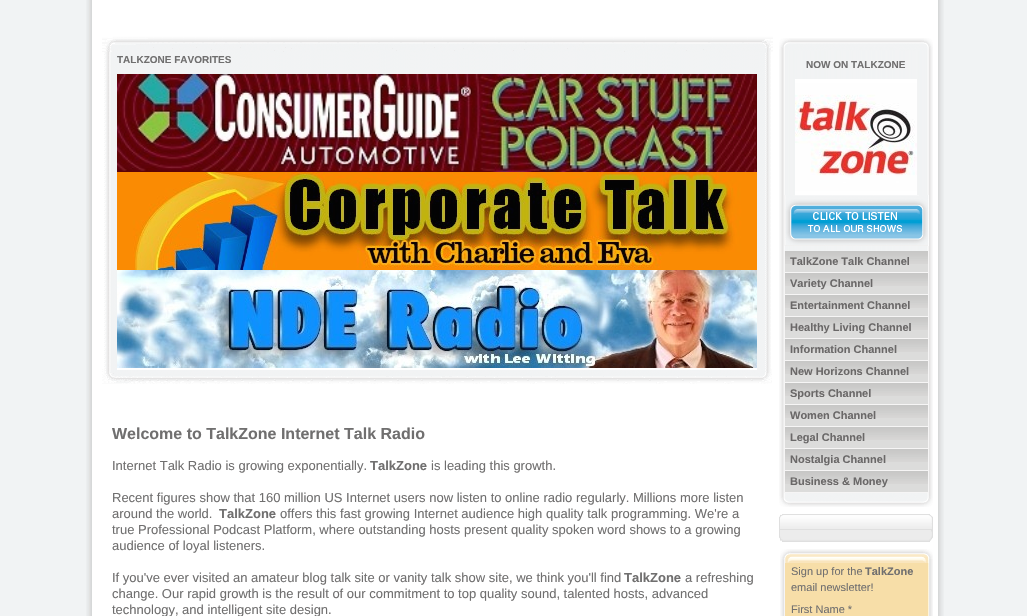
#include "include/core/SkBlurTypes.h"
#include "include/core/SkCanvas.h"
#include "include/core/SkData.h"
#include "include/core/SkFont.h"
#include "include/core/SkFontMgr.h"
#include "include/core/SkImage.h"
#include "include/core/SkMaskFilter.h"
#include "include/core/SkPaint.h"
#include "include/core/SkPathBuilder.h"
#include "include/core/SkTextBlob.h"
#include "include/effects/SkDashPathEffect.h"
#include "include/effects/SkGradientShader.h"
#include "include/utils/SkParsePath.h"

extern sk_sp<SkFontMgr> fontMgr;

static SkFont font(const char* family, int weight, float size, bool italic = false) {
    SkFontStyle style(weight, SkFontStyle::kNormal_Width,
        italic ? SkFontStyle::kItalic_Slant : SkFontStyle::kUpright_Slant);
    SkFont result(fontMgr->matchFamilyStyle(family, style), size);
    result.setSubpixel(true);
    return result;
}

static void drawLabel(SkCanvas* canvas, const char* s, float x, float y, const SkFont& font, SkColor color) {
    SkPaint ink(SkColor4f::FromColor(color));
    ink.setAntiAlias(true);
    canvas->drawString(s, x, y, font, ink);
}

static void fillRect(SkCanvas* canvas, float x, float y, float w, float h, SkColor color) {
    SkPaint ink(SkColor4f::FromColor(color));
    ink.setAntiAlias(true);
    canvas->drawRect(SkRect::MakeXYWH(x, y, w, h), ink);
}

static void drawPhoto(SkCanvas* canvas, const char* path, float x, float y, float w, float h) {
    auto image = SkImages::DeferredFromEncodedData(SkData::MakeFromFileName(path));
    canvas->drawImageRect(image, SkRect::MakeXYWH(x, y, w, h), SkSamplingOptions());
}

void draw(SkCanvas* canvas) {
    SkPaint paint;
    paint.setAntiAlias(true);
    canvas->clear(0xFFF1F3F4);
    drawPhoto(canvas, "assets/img1.png", 86, 0, 858, 616);
    drawPhoto(canvas, "assets/img2.png", 104, 52, 667, 317);
    drawPhoto(canvas, "assets/img3.png", 102, 36, 671, 16);
    SkFont font1 = font("Liberation Sans", 700, 10);
    drawLabel(canvas, "TALKZONE FAVORITES", 117, 63, font1, 0xFF706F6F);
    drawPhoto(canvas, "assets/img5.png", 129, 74, 628, 98);
    drawPhoto(canvas, "assets/img4.png", 117, 74, 640, 98);
    drawPhoto(canvas, "assets/img6.png", 117, 172, 640, 98);
    drawPhoto(canvas, "assets/img8.png", 102, 369, 670, 15);
    fillRect(canvas, 117, 358, 640, 12, 0xFFFFFFFF);
    drawPhoto(canvas, "assets/img7.png", 117, 270, 640, 98);
    SkFont font2 = font("Liberation Sans", 700, 16);
    drawLabel(canvas, "Welcome to TalkZone Internet Talk Radio", 112, 439, font2, 0xFF706F6F);
    SkFont font3 = font("Liberation Sans", 400, 13);
    drawLabel(canvas, "Internet Talk Radio is growing exponentially.", 112, 470, font3, 0xFF706F6F);
    SkFont font4 = font("Liberation Sans", 700, 13);
    drawLabel(canvas, "TalkZone", 370, 470, font4, 0xFF706F6F);
    drawLabel(canvas, "is leading this growth.", 431, 470, font3, 0xFF706F6F);
    drawLabel(canvas, "Recent figures show that 160 million US Internet users now listen to online radio regularly. Millions more listen", 112, 502, font3, 0xFF706F6F);
    drawLabel(canvas, "around the world.", 112, 518, font3, 0xFF706F6F);
    drawLabel(canvas, "TalkZone", 219, 518, font4, 0xFF706F6F);
    drawLabel(canvas, "offers this fast growing Internet audience high quality talk programming. We're a", 280, 518, font3, 0xFF706F6F);
    drawLabel(canvas, "true Professional Podcast Platform, where outstanding hosts present quality spoken word shows to a growing", 112, 534, font3, 0xFF706F6F);
    drawLabel(canvas, "audience of loyal listeners.", 112, 550, font3, 0xFF706F6F);
    drawLabel(canvas, "If you've ever visited an amateur blog talk site or vanity talk show site, we think you'll find", 112, 582, font3, 0xFF706F6F);
    drawLabel(canvas, "TalkZone", 624, 582, font4, 0xFF706F6F);
    drawLabel(canvas, "a refreshing", 685, 582, font3, 0xFF706F6F);
    drawLabel(canvas, "change. Our rapid growth is the result of our commitment to top quality sound, talented hosts, advanced", 112, 598, font3, 0xFF706F6F);
    drawLabel(canvas, "technology, and intelligent site design.", 112, 614, font3, 0xFF706F6F);
    drawPhoto(canvas, "assets/img9.png", 779, 38, 154, 14);
    drawPhoto(canvas, "assets/img10.png", 779, 52, 154, 5);
    drawPhoto(canvas, "assets/img11.png", 779, 57, 154, 189);
    drawLabel(canvas, "NOW ON TALKZONE", 806, 68, font1, 0xFF706F6F);
    drawPhoto(canvas, "assets/img12.png", 795, 79, 122, 116);
    drawPhoto(canvas, "assets/img13.png", 784, 195, 145, 51);
    drawPhoto(canvas, "assets/img14.png", 779, 246, 154, 247);
    fillRect(canvas, 784, 272, 145, 1, 0xFFF6F5F5);
    fillRect(canvas, 784, 251, 1, 22, 0xFFF6F5F5);
    fillRect(canvas, 785, 264, 143, 8, 0xFFDCDCDB);
    drawPhoto(canvas, "assets/img15.png", 785, 251, 143, 13);
    SkFont font5 = font("Liberation Sans", 700, 11);
    drawLabel(canvas, "TalkZone Talk Channel", 790, 265, font5, 0xFF6A6868);
    fillRect(canvas, 784, 294, 145, 1, 0xFFF6F5F5);
    fillRect(canvas, 784, 273, 1, 22, 0xFFF6F5F5);
    fillRect(canvas, 785, 286, 143, 8, 0xFFDCDCDB);
    drawPhoto(canvas, "assets/img15.png", 785, 273, 143, 13);
    drawLabel(canvas, "Variety Channel", 790, 287, font5, 0xFF6A6868);
    fillRect(canvas, 784, 316, 145, 1, 0xFFF6F5F5);
    fillRect(canvas, 784, 295, 1, 22, 0xFFF6F5F5);
    fillRect(canvas, 785, 308, 143, 8, 0xFFDCDCDB);
    drawPhoto(canvas, "assets/img15.png", 785, 295, 143, 13);
    drawLabel(canvas, "Entertainment Channel", 790, 309, font5, 0xFF6A6868);
    fillRect(canvas, 784, 338, 145, 1, 0xFFF6F5F5);
    fillRect(canvas, 784, 317, 1, 22, 0xFFF6F5F5);
    fillRect(canvas, 785, 330, 143, 8, 0xFFDCDCDB);
    drawPhoto(canvas, "assets/img15.png", 785, 317, 143, 13);
    drawLabel(canvas, "Healthy Living Channel", 790, 331, font5, 0xFF6A6868);
    fillRect(canvas, 784, 360, 145, 1, 0xFFF6F5F5);
    fillRect(canvas, 784, 339, 1, 22, 0xFFF6F5F5);
    fillRect(canvas, 785, 352, 143, 8, 0xFFDCDCDB);
    drawPhoto(canvas, "assets/img15.png", 785, 339, 143, 13);
    drawLabel(canvas, "Information Channel", 790, 353, font5, 0xFF6A6868);
    fillRect(canvas, 784, 382, 145, 1, 0xFFF6F5F5);
    fillRect(canvas, 784, 361, 1, 22, 0xFFF6F5F5);
    fillRect(canvas, 785, 374, 143, 8, 0xFFDCDCDB);
    drawPhoto(canvas, "assets/img15.png", 785, 361, 143, 13);
    drawLabel(canvas, "New Horizons Channel", 790, 375, font5, 0xFF6A6868);
    fillRect(canvas, 784, 404, 145, 1, 0xFFF6F5F5);
    fillRect(canvas, 784, 383, 1, 22, 0xFFF6F5F5);
    fillRect(canvas, 785, 396, 143, 8, 0xFFDCDCDB);
    drawPhoto(canvas, "assets/img15.png", 785, 383, 143, 13);
    drawLabel(canvas, "Sports Channel", 790, 397, font5, 0xFF6A6868);
    fillRect(canvas, 784, 426, 145, 1, 0xFFF6F5F5);
    fillRect(canvas, 784, 405, 1, 22, 0xFFF6F5F5);
    fillRect(canvas, 785, 418, 143, 8, 0xFFDCDCDB);
    drawPhoto(canvas, "assets/img15.png", 785, 405, 143, 13);
    drawLabel(canvas, "Women Channel", 790, 419, font5, 0xFF6A6868);
    fillRect(canvas, 784, 448, 145, 1, 0xFFF6F5F5);
    fillRect(canvas, 784, 427, 1, 22, 0xFFF6F5F5);
    fillRect(canvas, 785, 440, 143, 8, 0xFFDCDCDB);
    drawPhoto(canvas, "assets/img15.png", 785, 427, 143, 13);
    drawLabel(canvas, "Legal Channel", 790, 441, font5, 0xFF6A6868);
    fillRect(canvas, 784, 470, 145, 1, 0xFFF6F5F5);
    fillRect(canvas, 784, 449, 1, 22, 0xFFF6F5F5);
    fillRect(canvas, 785, 462, 143, 8, 0xFFDCDCDB);
    drawPhoto(canvas, "assets/img15.png", 785, 449, 143, 13);
    drawLabel(canvas, "Nostalgia Channel", 790, 463, font5, 0xFF6A6868);
    fillRect(canvas, 784, 492, 145, 1, 0xFFF6F5F5);
    fillRect(canvas, 784, 471, 1, 22, 0xFFF6F5F5);
    fillRect(canvas, 785, 484, 143, 8, 0xFFDCDCDB);
    drawPhoto(canvas, "assets/img15.png", 785, 471, 143, 13);
    drawLabel(canvas, "Business & Money", 790, 485, font5, 0xFF6A6868);
    drawPhoto(canvas, "assets/img16.png", 779, 493, 154, 14);
    drawPhoto(canvas, "assets/img17.png", 779, 514, 154, 16);
    drawPhoto(canvas, "assets/img18.png", 779, 530, 154, 12);
    drawPhoto(canvas, "assets/img19.png", 780, 549, 153, 14);
    drawPhoto(canvas, "assets/img20.png", 780, 563, 153, 53);
    SkFont font6 = font("Liberation Sans", 400, 11);
    drawLabel(canvas, "Sign up for the", 791, 575, font6, 0xFF706F6F);
    drawLabel(canvas, "TalkZone", 865, 575, font5, 0xFF706F6F);
    drawLabel(canvas, "email newsletter!", 791, 591, font6, 0xFF706F6F);
    drawLabel(canvas, "First Name *", 791, 613, font6, 0xFF706F6F);
}
